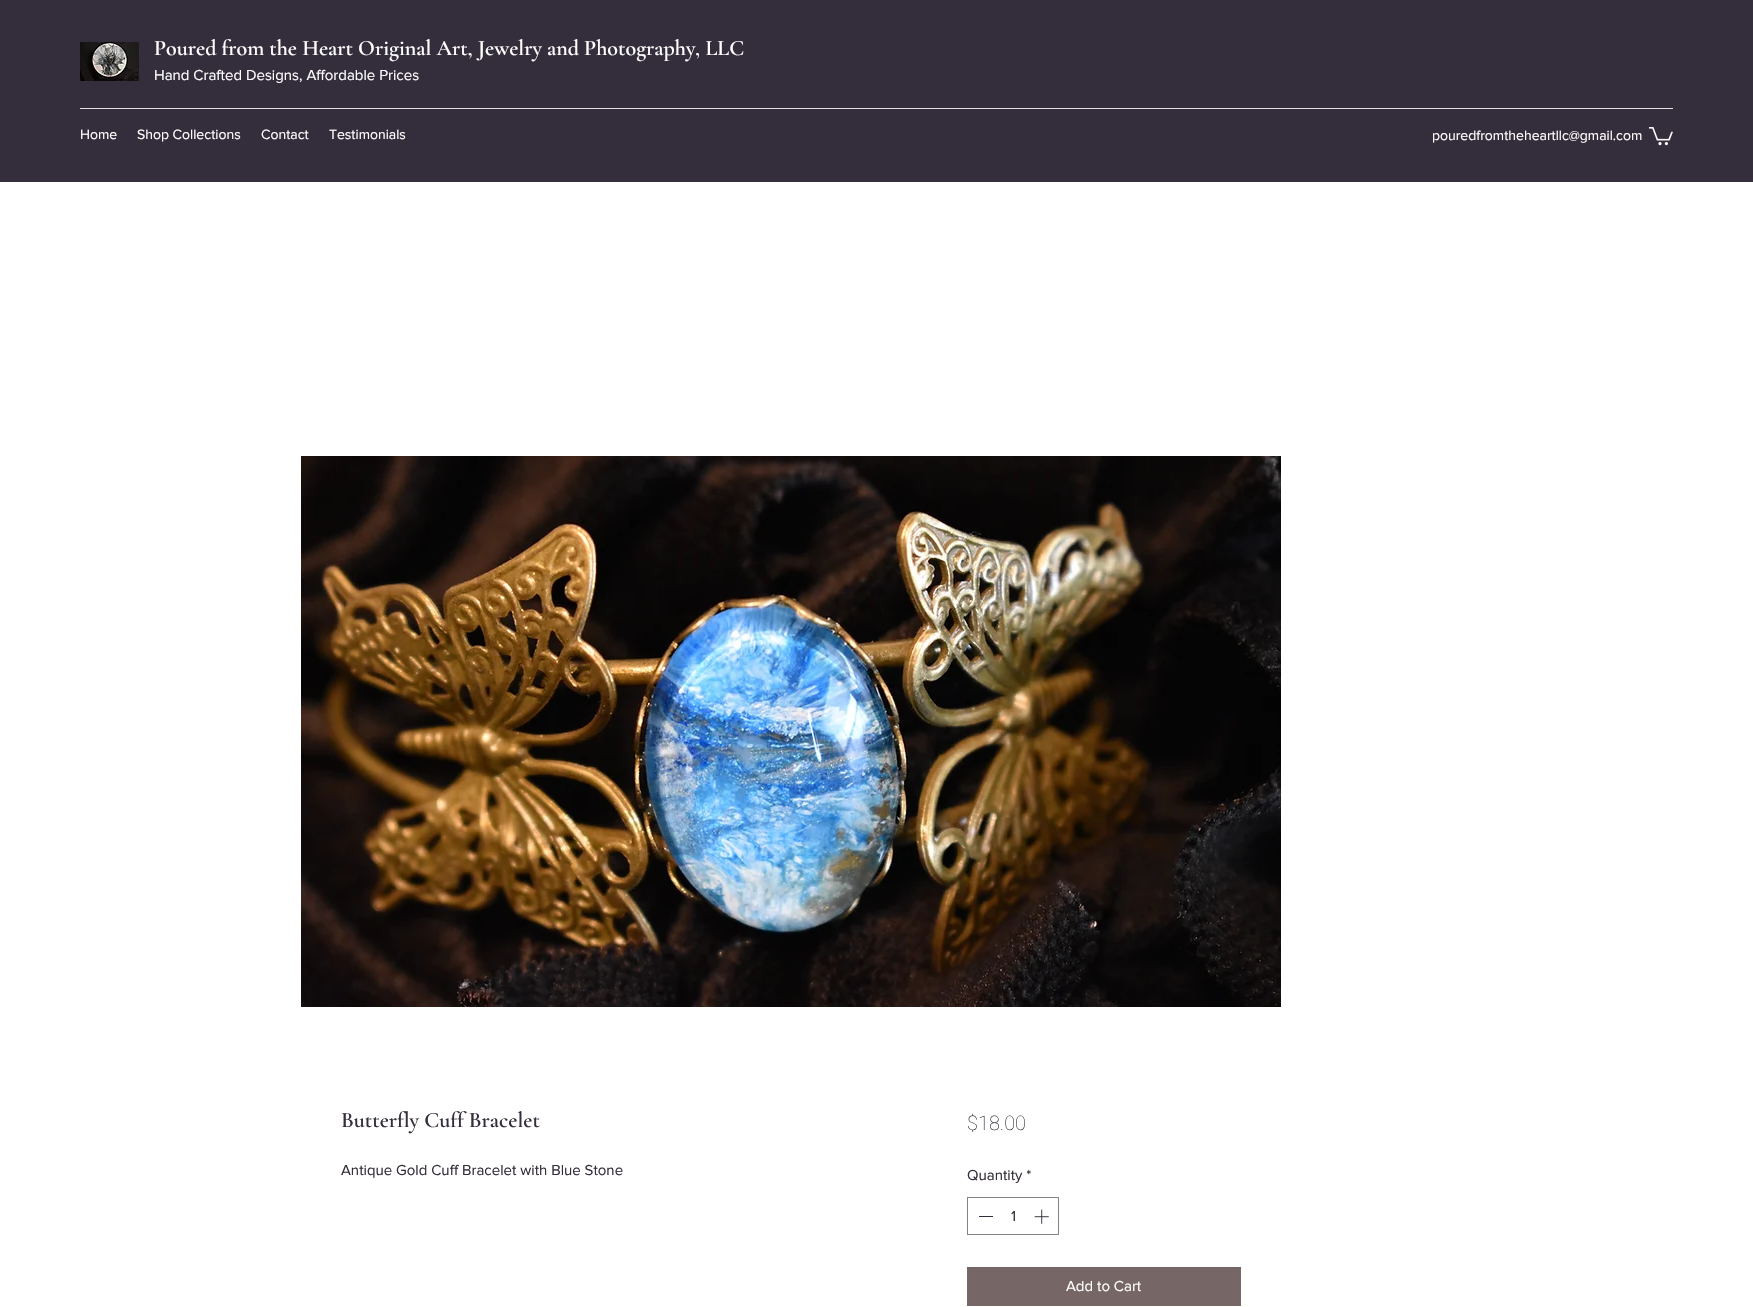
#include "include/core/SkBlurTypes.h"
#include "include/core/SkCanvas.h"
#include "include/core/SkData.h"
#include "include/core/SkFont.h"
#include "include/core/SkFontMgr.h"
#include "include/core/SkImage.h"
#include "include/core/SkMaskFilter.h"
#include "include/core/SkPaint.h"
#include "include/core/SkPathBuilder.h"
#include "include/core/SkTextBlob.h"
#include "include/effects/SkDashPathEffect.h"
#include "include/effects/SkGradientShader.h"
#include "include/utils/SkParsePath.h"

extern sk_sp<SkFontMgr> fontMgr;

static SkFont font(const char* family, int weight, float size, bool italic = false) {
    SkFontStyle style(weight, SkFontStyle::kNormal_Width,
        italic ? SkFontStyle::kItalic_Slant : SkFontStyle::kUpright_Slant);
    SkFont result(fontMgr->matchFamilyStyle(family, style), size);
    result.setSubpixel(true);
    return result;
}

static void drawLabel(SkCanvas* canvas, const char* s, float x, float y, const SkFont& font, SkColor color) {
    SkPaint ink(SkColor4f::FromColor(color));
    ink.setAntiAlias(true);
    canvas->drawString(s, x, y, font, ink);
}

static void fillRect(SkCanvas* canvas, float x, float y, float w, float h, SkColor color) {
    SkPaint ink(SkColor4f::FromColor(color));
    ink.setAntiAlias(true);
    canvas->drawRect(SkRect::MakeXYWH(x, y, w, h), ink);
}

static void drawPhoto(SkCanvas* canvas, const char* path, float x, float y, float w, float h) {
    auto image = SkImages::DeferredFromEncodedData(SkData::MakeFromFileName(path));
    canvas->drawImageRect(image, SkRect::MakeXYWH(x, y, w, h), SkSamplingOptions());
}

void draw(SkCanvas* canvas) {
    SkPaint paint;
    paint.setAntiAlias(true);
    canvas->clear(0xFFFFFFFF);
    fillRect(canvas, 0, 0, 1753, 182, 0xFF342D3B);
    drawPhoto(canvas, "assets/img1.png", 80, 42, 59, 39);
    SkFont font1 = font("Cormorant Garamond", 600, 22);
    drawLabel(canvas, "Poured from the Heart Original Art, Jewelry and Photography, LLC", 154, 55, font1, 0xFFFFFFFF);
    SkFont font2 = font("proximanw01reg", 400, 15);
    drawLabel(canvas, "Hand Crafted Designs, Affordable Prices", 154, 80, font2, 0xFFFFFFFF);
    fillRect(canvas, 80, 108, 1593, 1, 0xFFE1E0E2);
    SkFont font3 = font("proximanw01reg", 400, 14);
    drawLabel(canvas, "Home", 80, 139, font3, 0xFFFFFFFF);
    drawLabel(canvas, "Shop Collections", 137, 139, font3, 0xFFFFFFFF);
    drawLabel(canvas, "Contact", 261, 139, font3, 0xFFFFFFFF);
    drawLabel(canvas, "Testimonials", 329, 139, font3, 0xFFFFFFFF);
    drawLabel(canvas, "pouredfromtheheartllc@gmail.com", 1432, 140, font3, 0xFFFFFFFF);
    drawPhoto(canvas, "assets/img2.png", 1649, 127, 24, 19);
    drawPhoto(canvas, "assets/img3.png", 301, 456, 980, 551);
    drawLabel(canvas, "Butterfly Cuff Bracelet", 341, 1127, font1, 0xFF342D3B);
    drawLabel(canvas, "Antique Gold Cuff Bracelet with Blue Stone", 341, 1175, font2, 0xFF342D3B);
    SkFont font4 = font("Roboto", 100, 20);
    drawLabel(canvas, "$18.00", 967, 1130, font4, 0xFF342D3B);
    drawLabel(canvas, "Quantity *", 967, 1180, font2, 0xFF342D3B);
    paint.setStroke(true);
    paint.setStrokeWidth(1);
    paint.setColor(0xFF858189);
    canvas->drawRect(SkRect::MakeXYWH(967.5f, 1197.5f, 91, 37), paint);
    fillRect(canvas, 979, 1216, 14, 1, 0xFF342D3B);
    drawLabel(canvas, "1", 1011, 1221, font2, 0xFF342D3B);
    drawPhoto(canvas, "assets/img4.png", 1034, 1209, 15, 15);
    fillRect(canvas, 967, 1267, 274, 39, 0xFF766665);
    drawLabel(canvas, "Add to Cart", 1066, 1291, font2, 0xFFFFFFFF);
}
